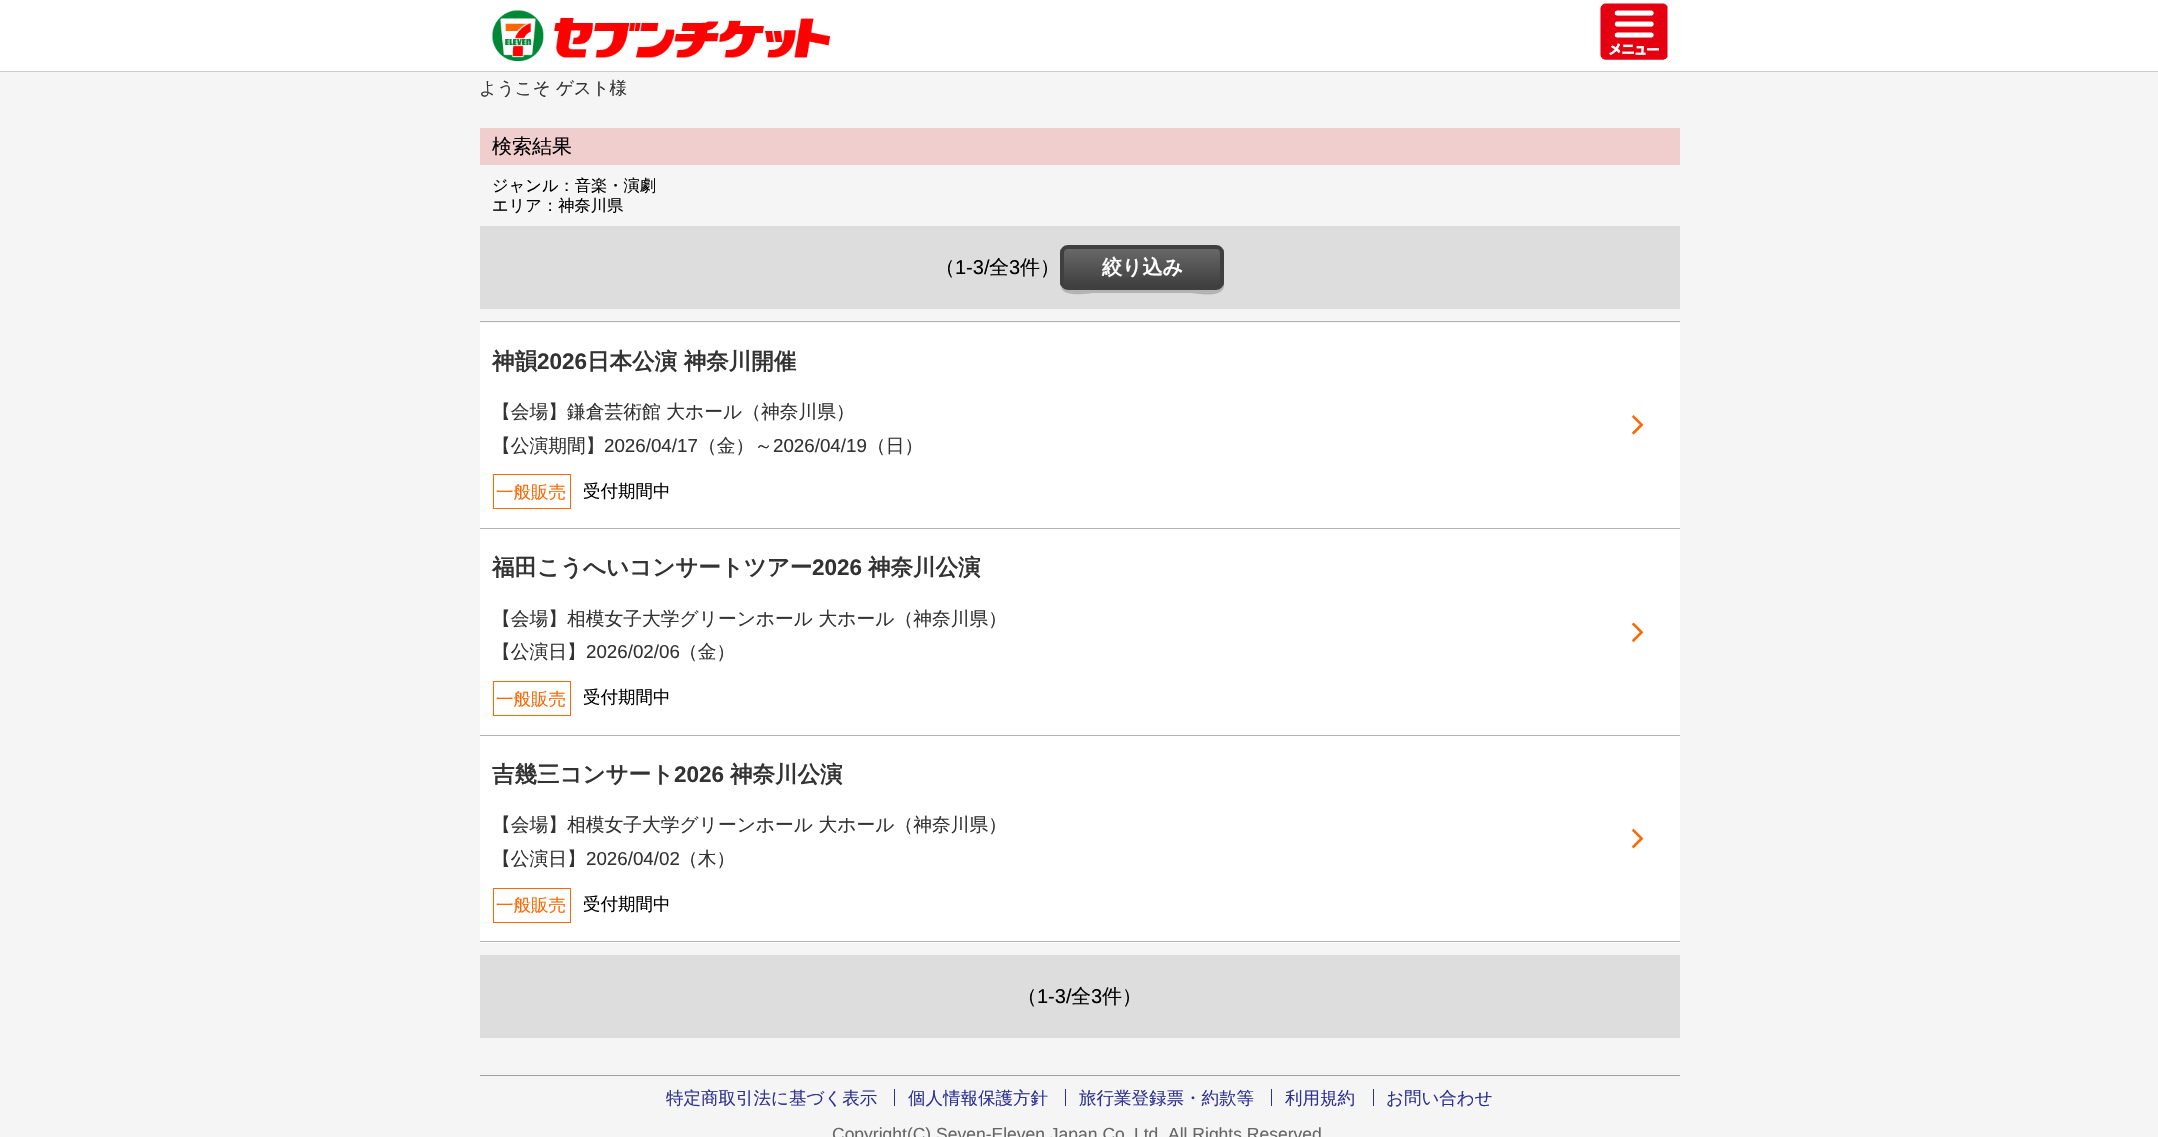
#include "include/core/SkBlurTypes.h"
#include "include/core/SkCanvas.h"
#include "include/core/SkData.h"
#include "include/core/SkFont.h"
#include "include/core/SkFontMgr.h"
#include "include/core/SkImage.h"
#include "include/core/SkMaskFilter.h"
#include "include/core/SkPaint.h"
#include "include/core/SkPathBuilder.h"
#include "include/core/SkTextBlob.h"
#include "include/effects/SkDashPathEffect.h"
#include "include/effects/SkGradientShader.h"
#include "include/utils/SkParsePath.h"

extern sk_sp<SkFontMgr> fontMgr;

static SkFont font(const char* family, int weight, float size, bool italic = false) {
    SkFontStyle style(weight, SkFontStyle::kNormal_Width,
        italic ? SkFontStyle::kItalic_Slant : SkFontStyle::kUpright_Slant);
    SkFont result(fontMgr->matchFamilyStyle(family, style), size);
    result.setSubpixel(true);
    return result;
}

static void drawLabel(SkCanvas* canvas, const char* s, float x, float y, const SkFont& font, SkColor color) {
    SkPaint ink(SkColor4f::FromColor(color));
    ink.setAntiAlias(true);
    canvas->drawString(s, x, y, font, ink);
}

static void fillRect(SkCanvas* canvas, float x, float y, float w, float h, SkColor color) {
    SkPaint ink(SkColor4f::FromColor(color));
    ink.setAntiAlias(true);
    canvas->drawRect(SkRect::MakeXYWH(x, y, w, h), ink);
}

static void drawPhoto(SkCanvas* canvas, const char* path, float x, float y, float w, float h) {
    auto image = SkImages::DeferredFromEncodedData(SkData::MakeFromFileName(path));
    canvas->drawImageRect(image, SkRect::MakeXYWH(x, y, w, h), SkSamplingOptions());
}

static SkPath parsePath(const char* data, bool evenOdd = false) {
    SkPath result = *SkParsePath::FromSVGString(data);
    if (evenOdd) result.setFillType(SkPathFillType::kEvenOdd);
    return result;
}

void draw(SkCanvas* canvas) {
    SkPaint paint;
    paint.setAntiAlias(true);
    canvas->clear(0xFFF5F5F5);
    fillRect(canvas, 0, 0, 2158, 71, 0xFFFFFFFF);
    drawPhoto(canvas, "assets/img1.png", 492, 10, 338, 51);
    drawPhoto(canvas, "assets/img2.png", 1600, 3, 68, 57);
    fillRect(canvas, 0, 71, 2158, 1, 0xFFCCCCCC);
    SkFont font1 = font("WenQuanYi Zen Hei", 500, 17.5f);
    drawLabel(canvas, "ようこそ ゲスト様", 479, 94, font1, 0xFF333333);
    fillRect(canvas, 480, 128, 1200, 37, 0xFFF1CECE);
    SkFont font2 = font("WenQuanYi Zen Hei", 500, 20);
    drawLabel(canvas, "検索結果", 492, 153, font2, 0xFF000000);
    SkFont font3 = font("WenQuanYi Zen Hei", 500, 16.25f);
    drawLabel(canvas, "ジャンル：音楽・演劇", 492, 191, font3, 0xFF000000);
    drawLabel(canvas, "エリア：神奈川県", 492, 211, font3, 0xFF000000);
    fillRect(canvas, 480, 226, 1200, 83, 0xFFDDDDDD);
    drawLabel(canvas, "（", 935, 274, font2, 0xFF000000);
    SkFont font4 = font("Liberation Sans", 400, 20);
    drawLabel(canvas, "1-3/", 955, 274, font4, 0xFF000000);
    drawLabel(canvas, "全", 989, 274, font2, 0xFF000000);
    drawLabel(canvas, "3", 1009, 274, font4, 0xFF000000);
    drawLabel(canvas, "件）", 1020, 274, font2, 0xFF000000);
    paint.setColor(0xFFB3B3B3);
    canvas->drawPath(parsePath("M1060 282L1061 288C1065 298 1091 293 1093 293H1191C1194 293 1221 299 1224 287V254V282C1224 287 1220 290 1216 290H1068C1063 290 1060 287 1060 282Z"), paint);
    canvas->save();
    canvas->clipPath(parsePath("M1068 245H1216C1220.5 245 1224 248.5 1224 253V282C1224 286.5 1220.5 290 1216 290H1068C1063.5 290 1060 286.5 1060 282V253C1060 248.5 1063.5 245 1068 245Z"), true);
    {
        const SkColor colors[] = {0xFF686868, 0xFF3F3F3F};
        const float stops[] = {0, 1};
        const SkPoint ends[] = {{1142, 249}, {1142, 286}};
        paint.setShader(SkGradientShader::MakeLinear(ends, colors, stops, 2, SkTileMode::kClamp));
        paint.setAlpha(255);
    }
    canvas->drawRect(SkRect::MakeXYWH(1060, 249, 164, 37), paint);
    canvas->restore();
    paint.setStroke(true);
    paint.setStrokeWidth(4);
    paint.setShader(nullptr);
    paint.setColor(0xFF3F3F3F);
    canvas->drawRoundRect(SkRect::MakeXYWH(1062, 247, 160, 41), 6, 6, paint);
    SkFont font5 = font("WenQuanYi Zen Hei", 700, 20);
    drawLabel(canvas, "絞り込み", 1102, 274, font5, 0xFFFFFFFF);
    fillRect(canvas, 480, 321, 1200, 1, 0xFFB3B3B3);
    fillRect(canvas, 480, 323, 1200, 205, 0xFFFFFFFF);
    fillRect(canvas, 480, 528, 1200, 1, 0xFFB3B3B3);
    drawPhoto(canvas, "assets/img3.png", 1632, 414, 12, 21);
    SkFont font6 = font("WenQuanYi Zen Hei", 700, 22.5f);
    drawLabel(canvas, "神韻", 492, 369, font6, 0xFF333333);
    SkFont font7 = font("Liberation Sans", 700, 22.5f);
    drawLabel(canvas, "2026", 537, 369, font7, 0xFF333333);
    drawLabel(canvas, "日本公演 神奈川開催", 587, 369, font6, 0xFF333333);
    SkFont font8 = font("WenQuanYi Zen Hei", 500, 18.75f);
    drawLabel(canvas, "【会場】鎌倉芸術館 大ホール（神奈川県）", 492, 418, font8, 0xFF333333);
    drawLabel(canvas, "【公演期間】", 492, 452, font8, 0xFF333333);
    SkFont font9 = font("Liberation Sans", 400, 18.75f);
    drawLabel(canvas, "2026/04/17", 604, 452, font9, 0xFF333333);
    drawLabel(canvas, "（金）～", 698, 452, font8, 0xFF333333);
    drawLabel(canvas, "2026/04/19", 773, 452, font9, 0xFF333333);
    drawLabel(canvas, "（日）", 867, 452, font8, 0xFF333333);
    paint.setStrokeWidth(1);
    paint.setColor(0xFFFF6600);
    canvas->drawRect(SkRect::MakeXYWH(493.5f, 474.5f, 77, 34), paint);
    drawLabel(canvas, "一般販売", 496, 498, font1, 0xFFFF6600);
    drawLabel(canvas, "受付期間中", 583, 497, font1, 0xFF000000);
    fillRect(canvas, 480, 529, 1200, 206, 0xFFFFFFFF);
    fillRect(canvas, 480, 735, 1200, 1, 0xFFB3B3B3);
    drawPhoto(canvas, "assets/img4.png", 1632, 622, 12, 21);
    drawLabel(canvas, "福田こうへいコンサートツアー", 492, 575, font6, 0xFF333333);
    drawLabel(canvas, "2026", 812, 575, font7, 0xFF333333);
    drawLabel(canvas, "神奈川公演", 868, 575, font6, 0xFF333333);
    drawLabel(canvas, "【会場】相模女子大学グリーンホール 大ホール（神奈川県）", 492, 625, font8, 0xFF333333);
    drawLabel(canvas, "【公演日】", 492, 658, font8, 0xFF333333);
    drawLabel(canvas, "2026/02/06", 586, 658, font9, 0xFF333333);
    drawLabel(canvas, "（金）", 679, 658, font8, 0xFF333333);
    canvas->drawRect(SkRect::MakeXYWH(493.5f, 681.5f, 77, 34), paint);
    drawLabel(canvas, "一般販売", 496, 705, font1, 0xFFFF6600);
    drawLabel(canvas, "受付期間中", 583, 703, font1, 0xFF000000);
    fillRect(canvas, 480, 736, 1200, 207, 0xFFFFFFFF);
    fillRect(canvas, 480, 941, 1200, 1, 0xFFB3B3B3);
    drawPhoto(canvas, "assets/img5.png", 1632, 828, 12, 21);
    drawLabel(canvas, "吉幾三コンサート", 492, 782, font6, 0xFF333333);
    drawLabel(canvas, "2026", 674, 782, font7, 0xFF333333);
    drawLabel(canvas, "神奈川公演", 730, 782, font6, 0xFF333333);
    drawLabel(canvas, "【会場】相模女子大学グリーンホール 大ホール（神奈川県）", 492, 831, font8, 0xFF333333);
    drawLabel(canvas, "【公演日】", 492, 865, font8, 0xFF333333);
    drawLabel(canvas, "2026/04/02", 586, 865, font9, 0xFF333333);
    drawLabel(canvas, "（木）", 679, 865, font8, 0xFF333333);
    canvas->drawRect(SkRect::MakeXYWH(493.5f, 888.5f, 77, 34), paint);
    drawLabel(canvas, "一般販売", 496, 911, font1, 0xFFFF6600);
    drawLabel(canvas, "受付期間中", 583, 910, font1, 0xFF000000);
    fillRect(canvas, 480, 955, 1200, 83, 0xFFDDDDDD);
    drawLabel(canvas, "（", 1017, 1003, font2, 0xFF000000);
    drawLabel(canvas, "1-3/", 1037, 1003, font4, 0xFF000000);
    drawLabel(canvas, "全", 1071, 1003, font2, 0xFF000000);
    drawLabel(canvas, "3", 1091, 1003, font4, 0xFF000000);
    drawLabel(canvas, "件）", 1102, 1003, font2, 0xFF000000);
    fillRect(canvas, 480, 1075, 1200, 1, 0xFFA1A1A1);
    drawLabel(canvas, "特定商取引法に基づく表示", 666, 1104, font1, 0xFF2E3192);
    fillRect(canvas, 894, 1089, 1, 17, 0xFF2E3192);
    drawLabel(canvas, "個人情報保護方針", 908, 1104, font1, 0xFF2E3192);
    fillRect(canvas, 1065, 1089, 1, 17, 0xFF2E3192);
    drawLabel(canvas, "旅行業登録票・約款等", 1079, 1104, font1, 0xFF2E3192);
    fillRect(canvas, 1271, 1089, 1, 17, 0xFF2E3192);
    drawLabel(canvas, "利用規約", 1285, 1104, font1, 0xFF2E3192);
    fillRect(canvas, 1373, 1089, 1, 17, 0xFF2E3192);
    drawLabel(canvas, "お問い合わせ", 1386, 1104, font1, 0xFF2E3192);
    SkFont font10 = font("Liberation Sans", 400, 17.5f);
    drawLabel(canvas, "Copyright(C) Seven-Eleven Japan Co", 832, 1140, font10, 0xFF666666);
    drawLabel(canvas, "Ltd. All Rights Reserved", 1134, 1140, font10, 0xFF666666);
}
